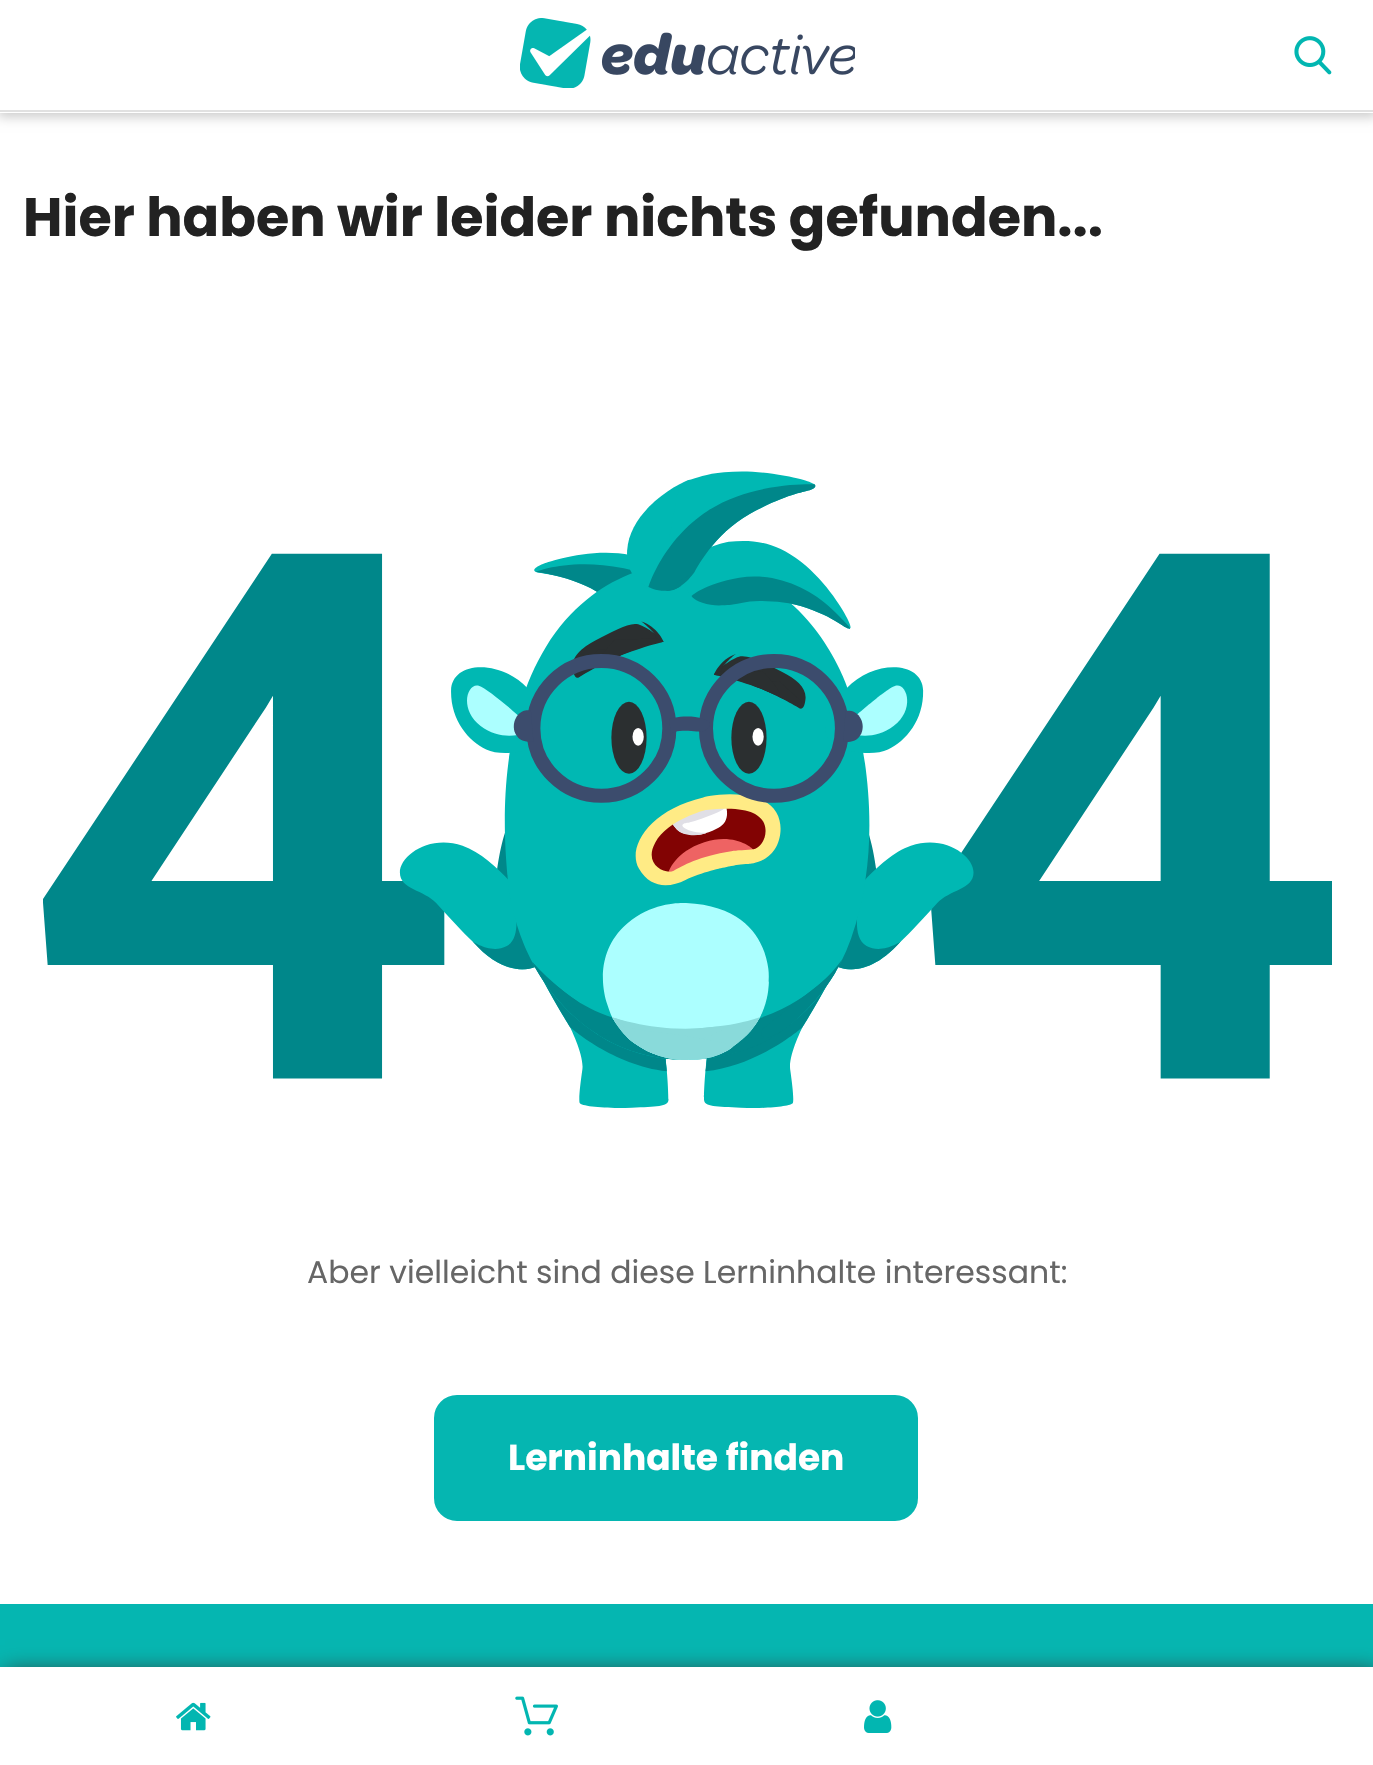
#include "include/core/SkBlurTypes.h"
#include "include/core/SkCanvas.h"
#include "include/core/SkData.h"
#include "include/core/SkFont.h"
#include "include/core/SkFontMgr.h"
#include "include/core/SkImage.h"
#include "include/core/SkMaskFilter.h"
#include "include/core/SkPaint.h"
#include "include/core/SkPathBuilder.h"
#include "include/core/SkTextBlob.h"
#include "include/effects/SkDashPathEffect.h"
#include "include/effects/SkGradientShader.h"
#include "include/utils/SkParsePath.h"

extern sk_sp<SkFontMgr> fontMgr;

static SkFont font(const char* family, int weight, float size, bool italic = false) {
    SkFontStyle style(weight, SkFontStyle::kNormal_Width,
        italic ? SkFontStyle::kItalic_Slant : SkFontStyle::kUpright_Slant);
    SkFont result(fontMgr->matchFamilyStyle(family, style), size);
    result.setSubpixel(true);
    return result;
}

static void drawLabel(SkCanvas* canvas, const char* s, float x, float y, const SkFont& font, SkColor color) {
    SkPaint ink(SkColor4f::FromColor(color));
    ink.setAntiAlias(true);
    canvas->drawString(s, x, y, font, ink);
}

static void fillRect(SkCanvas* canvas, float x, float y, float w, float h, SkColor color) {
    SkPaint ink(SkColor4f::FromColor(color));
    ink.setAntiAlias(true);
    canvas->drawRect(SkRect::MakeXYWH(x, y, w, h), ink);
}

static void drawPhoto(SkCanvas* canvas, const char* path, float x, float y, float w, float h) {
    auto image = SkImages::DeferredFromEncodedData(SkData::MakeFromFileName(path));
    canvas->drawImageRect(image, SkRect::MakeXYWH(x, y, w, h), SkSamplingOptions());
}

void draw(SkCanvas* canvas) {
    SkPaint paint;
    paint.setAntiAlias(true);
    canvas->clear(0xFFFFFFFF);
    paint.setColor(0x33000000);
    paint.setMaskFilter(SkMaskFilter::MakeBlur(kNormal_SkBlurStyle, 5.5f));
    canvas->drawRect(SkRect::MakeXYWH(-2, 0, 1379, 117), paint);
    paint.setMaskFilter(nullptr);
    fillRect(canvas, 0, 0, 1373, 113, 0xFFFFFFFF);
    fillRect(canvas, 0, 110, 1373, 2, 0xFFE1E1E1);
    drawPhoto(canvas, "assets/img1.png", 520, 18, 335, 70);
    drawPhoto(canvas, "assets/img2.png", 1294, 36, 38, 39);
    SkFont font1 = font("Poppins", 700, 54);
    drawLabel(canvas, "Hier haben wir leider nichts gefunden...", 23, 236, font1, 0xFF222222);
    drawPhoto(canvas, "assets/img3.png", 43, 471, 1289, 637);
    SkFont font2 = font("Poppins", 400, 31.5f);
    drawLabel(canvas, "Aber vielleicht sind diese Lerninhalte interessant:", 307, 1283, font2, 0xFF666666);
    paint.setColor(0xFF05B6B1);
    canvas->drawRoundRect(SkRect::MakeXYWH(435, 1396, 482, 124), 22, 22, paint);
    paint.setStroke(true);
    paint.setStrokeWidth(2);
    canvas->drawRoundRect(SkRect::MakeXYWH(435, 1396, 482, 124), 22, 22, paint);
    SkFont font3 = font("Poppins", 700, 36);
    drawLabel(canvas, "Lerninhalte finden", 508, 1470, font3, 0xFFFFFFFF);
    fillRect(canvas, 0, 1604, 1373, 63, 0xFF05B6B1);
    paint.setStroke(false);
    paint.setColor(0xFF333333);
    paint.setMaskFilter(SkMaskFilter::MakeBlur(kNormal_SkBlurStyle, 11));
    canvas->drawRect(SkRect::MakeXYWH(5, 1672, 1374, 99), paint);
    paint.setMaskFilter(nullptr);
    fillRect(canvas, 0, 1667, 1373, 98, 0xFFFFFFFF);
    drawPhoto(canvas, "assets/img4.png", 176, 1702, 35, 29);
    drawPhoto(canvas, "assets/img5.png", 515, 1696, 43, 40);
    drawPhoto(canvas, "assets/img6.png", 864, 1700, 28, 33);
}
